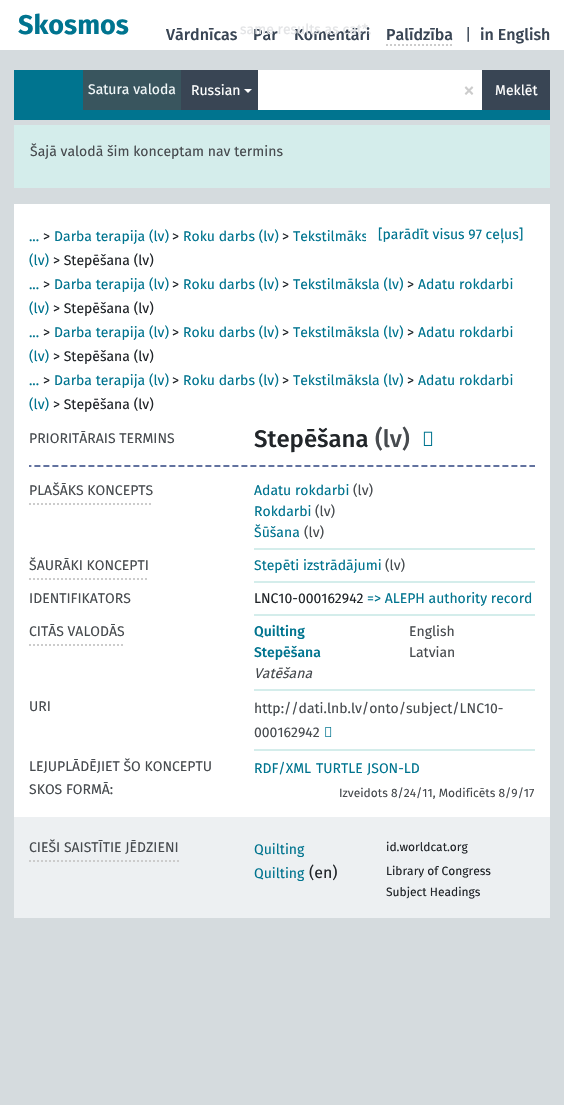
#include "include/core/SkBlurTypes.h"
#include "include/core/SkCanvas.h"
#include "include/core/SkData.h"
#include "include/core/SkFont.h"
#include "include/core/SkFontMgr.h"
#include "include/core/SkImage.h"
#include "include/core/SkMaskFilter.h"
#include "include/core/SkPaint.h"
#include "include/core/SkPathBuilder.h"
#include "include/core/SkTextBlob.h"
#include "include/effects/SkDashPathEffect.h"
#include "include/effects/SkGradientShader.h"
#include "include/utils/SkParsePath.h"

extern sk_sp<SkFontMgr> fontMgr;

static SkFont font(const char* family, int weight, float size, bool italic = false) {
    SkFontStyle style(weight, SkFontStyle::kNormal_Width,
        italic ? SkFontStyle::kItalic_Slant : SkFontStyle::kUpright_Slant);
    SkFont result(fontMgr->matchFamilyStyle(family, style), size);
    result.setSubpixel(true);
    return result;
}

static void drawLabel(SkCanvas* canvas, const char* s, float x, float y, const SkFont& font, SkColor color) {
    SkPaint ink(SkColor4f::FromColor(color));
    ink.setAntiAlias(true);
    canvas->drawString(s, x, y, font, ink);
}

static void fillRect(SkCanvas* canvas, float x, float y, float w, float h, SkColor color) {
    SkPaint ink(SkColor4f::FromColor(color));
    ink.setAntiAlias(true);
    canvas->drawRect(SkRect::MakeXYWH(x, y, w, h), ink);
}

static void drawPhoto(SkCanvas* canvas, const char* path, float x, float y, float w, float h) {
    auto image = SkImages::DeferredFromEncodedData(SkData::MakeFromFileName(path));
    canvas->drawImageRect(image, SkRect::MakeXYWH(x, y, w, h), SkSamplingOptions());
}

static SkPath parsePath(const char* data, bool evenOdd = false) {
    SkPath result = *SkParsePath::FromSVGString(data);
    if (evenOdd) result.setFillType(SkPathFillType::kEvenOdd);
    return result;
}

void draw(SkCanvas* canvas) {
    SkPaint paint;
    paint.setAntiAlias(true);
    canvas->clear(0xFFD5DBDE);
    fillRect(canvas, 0, 0, 564, 50, 0xFFFFFFFF);
    SkFont font1 = font("Fira Sans", 700, 27);
    drawLabel(canvas, "Skosmos", 18, 34, font1, 0xFF00748F);
    SkFont font2 = font("Fira Sans", 500, 16);
    drawLabel(canvas, "Vārdnīcas", 166, 40, font2, 0xFF394554);
    drawLabel(canvas, "Par", 253, 40, font2, 0xFF394554);
    drawLabel(canvas, "Komentāri", 294, 40, font2, 0xFF394554);
    SkFont font3 = font("Fira Sans", 400, 14);
    drawLabel(canvas, "same results as cat*.", 240, 34, font3, 0xFFE3E4E6);
    drawLabel(canvas, "Palīdzība", 386, 40, font2, 0xFF394554);
    paint.setStroke(true);
    paint.setStrokeWidth(2);
    paint.setColor(0xFFCCCCCC);
    paint.setPathEffect(SkDashPathEffect::Make({{2, 2}}, 0));
    canvas->drawPath(parsePath("M386 45H453"), paint);
    paint.setPathEffect(nullptr);
    SkFont font4 = font("Fira Sans", 400, 16);
    drawLabel(canvas, "|", 465, 40, font4, 0xFF394554);
    drawLabel(canvas, "in English", 480, 40, font2, 0xFF394554);
    fillRect(canvas, 14, 70, 536, 50, 0xFF00748F);
    fillRect(canvas, 83, 70, 98, 40, 0xFF39555E);
    drawLabel(canvas, "Satura valoda", 88, 94, font3, 0xFFF2F8F9);
    fillRect(canvas, 181, 70, 77, 40, 0xFF394554);
    drawLabel(canvas, "Russian", 191, 95, font3, 0xFFFFFFFF);
    paint.setStroke(false);
    paint.setColor(0xFFFFFFFF);
    canvas->drawPath(parsePath("M244 89H252L248 93Z"), paint);
    fillRect(canvas, 258, 70, 224, 40, 0xFFFFFFFF);
    SkFont font5 = font("Fira Sans", 400, 24);
    drawLabel(canvas, "×", 463, 98, font5, 0xFFCCCCCC);
    fillRect(canvas, 482, 70, 68, 40, 0xFF394554);
    drawLabel(canvas, "Meklēt", 495, 95, font3, 0xFFFFFFFF);
    fillRect(canvas, 14, 125, 536, 63, 0xFFD4EDEB);
    drawLabel(canvas, "Šajā valodā šim konceptam nav termins", 30, 156, font3, 0xFF474B4F);
    fillRect(canvas, 14, 204, 536, 613, 0xFFFFFFFF);
    drawLabel(canvas, ">", 43, 241, font3, 0xFF212529);
    drawLabel(canvas, "Darba terapija (lv)", 54, 241, font3, 0xFF00748F);
    drawLabel(canvas, ">", 172, 241, font3, 0xFF212529);
    drawLabel(canvas, "Roku darbs (lv)", 183, 241, font3, 0xFF00748F);
    drawLabel(canvas, ">", 282, 241, font3, 0xFF212529);
    drawLabel(canvas, "Tekstilmāks", 293, 241, font3, 0xFF00748F);
    drawLabel(canvas, "...", 29, 241, font3, 0xFF00748F);
    drawLabel(canvas, "(lv)", 29, 265, font3, 0xFF00748F);
    drawLabel(canvas, "> Stepēšana (lv)", 53, 265, font3, 0xFF212529);
    fillRect(canvas, 366, 233, 2, 8, 0xFFFFFFFF);
    drawLabel(canvas, "[parādīt visus 97 ceļus]", 378, 239, font3, 0xFF00748F);
    drawLabel(canvas, ">", 43, 289, font3, 0xFF212529);
    drawLabel(canvas, "Darba terapija (lv)", 54, 289, font3, 0xFF00748F);
    drawLabel(canvas, ">", 172, 289, font3, 0xFF212529);
    drawLabel(canvas, "Roku darbs (lv)", 183, 289, font3, 0xFF00748F);
    drawLabel(canvas, ">", 282, 289, font3, 0xFF212529);
    drawLabel(canvas, "Tekstilmāksla (lv)", 293, 289, font3, 0xFF00748F);
    drawLabel(canvas, ">", 407, 289, font3, 0xFF212529);
    drawLabel(canvas, "Adatu rokdarbi", 418, 289, font3, 0xFF00748F);
    drawLabel(canvas, "...", 29, 289, font3, 0xFF00748F);
    drawLabel(canvas, "(lv)", 29, 313, font3, 0xFF00748F);
    drawLabel(canvas, "> Stepēšana (lv)", 53, 313, font3, 0xFF212529);
    drawLabel(canvas, ">", 43, 337, font3, 0xFF212529);
    drawLabel(canvas, "Darba terapija (lv)", 54, 337, font3, 0xFF00748F);
    drawLabel(canvas, ">", 172, 337, font3, 0xFF212529);
    drawLabel(canvas, "Roku darbs (lv)", 183, 337, font3, 0xFF00748F);
    drawLabel(canvas, ">", 282, 337, font3, 0xFF212529);
    drawLabel(canvas, "Tekstilmāksla (lv)", 293, 337, font3, 0xFF00748F);
    drawLabel(canvas, ">", 407, 337, font3, 0xFF212529);
    drawLabel(canvas, "Adatu rokdarbi", 418, 337, font3, 0xFF00748F);
    drawLabel(canvas, "...", 29, 337, font3, 0xFF00748F);
    drawLabel(canvas, "(lv)", 29, 361, font3, 0xFF00748F);
    drawLabel(canvas, "> Stepēšana (lv)", 53, 361, font3, 0xFF212529);
    drawLabel(canvas, ">", 43, 385, font3, 0xFF212529);
    drawLabel(canvas, "Darba terapija (lv)", 54, 385, font3, 0xFF00748F);
    drawLabel(canvas, ">", 172, 385, font3, 0xFF212529);
    drawLabel(canvas, "Roku darbs (lv)", 183, 385, font3, 0xFF00748F);
    drawLabel(canvas, ">", 282, 385, font3, 0xFF212529);
    drawLabel(canvas, "Tekstilmāksla (lv)", 293, 385, font3, 0xFF00748F);
    drawLabel(canvas, ">", 407, 385, font3, 0xFF212529);
    drawLabel(canvas, "Adatu rokdarbi", 418, 385, font3, 0xFF00748F);
    drawLabel(canvas, "...", 29, 385, font3, 0xFF00748F);
    drawLabel(canvas, "(lv)", 29, 409, font3, 0xFF00748F);
    drawLabel(canvas, "> Stepēšana (lv)", 53, 409, font3, 0xFF212529);
    drawLabel(canvas, "PRIORITĀRAIS TERMINS", 29, 443, font3, 0xFF474B4F);
    SkFont font6 = font("Fira Sans", 500, 24);
    drawLabel(canvas, "Stepēšana", 254, 447, font6, 0xFF212529);
    drawLabel(canvas, "(lv)", 375, 447, font6, 0xFF474B4F);
    drawPhoto(canvas, "assets/img1.png", 423, 431, 10, 15);
    drawPhoto(canvas, "assets/img2.png", 29, 465, 506, 2);
    paint.setStroke(true);
    paint.setColor(0xFFCCCCCC);
    paint.setPathEffect(SkDashPathEffect::Make({{2, 2}}, 0));
    canvas->drawPath(parsePath("M29 504H153"), paint);
    paint.setPathEffect(nullptr);
    drawLabel(canvas, "PLAŠĀKS KONCEPTS", 29, 495, font3, 0xFF474B4F);
    fillRect(canvas, 254, 548, 281, 2, 0xFFD4EDEB);
    drawLabel(canvas, "Adatu rokdarbi", 254, 495, font3, 0xFF00748F);
    drawLabel(canvas, "(lv)", 353, 495, font3, 0xFF474B4F);
    drawLabel(canvas, "Rokdarbi", 254, 516, font3, 0xFF00748F);
    drawLabel(canvas, "(lv)", 315, 516, font3, 0xFF474B4F);
    drawLabel(canvas, "Šūšana", 254, 537, font3, 0xFF00748F);
    drawLabel(canvas, "(lv)", 304, 537, font3, 0xFF474B4F);
    paint.setPathEffect(SkDashPathEffect::Make({{2, 2}}, 0));
    canvas->drawPath(parsePath("M29 579H149"), paint);
    paint.setPathEffect(nullptr);
    drawLabel(canvas, "ŠAURĀKI KONCEPTI", 29, 570, font3, 0xFF474B4F);
    fillRect(canvas, 254, 581, 281, 2, 0xFFD4EDEB);
    drawLabel(canvas, "Stepēti izstrādājumi", 254, 570, font3, 0xFF00748F);
    drawLabel(canvas, "(lv)", 385, 570, font3, 0xFF474B4F);
    drawLabel(canvas, "IDENTIFIKATORS", 29, 603, font3, 0xFF474B4F);
    fillRect(canvas, 254, 614, 281, 2, 0xFFD4EDEB);
    drawLabel(canvas, "LNC10-000162942", 254, 603, font3, 0xFF212529);
    drawLabel(canvas, "=> ALEPH authority record", 367, 603, font3, 0xFF00748F);
    paint.setPathEffect(SkDashPathEffect::Make({{2, 2}}, 0));
    canvas->drawPath(parsePath("M29 645H125"), paint);
    paint.setPathEffect(nullptr);
    drawLabel(canvas, "CITĀS VALODĀS", 29, 636, font3, 0xFF474B4F);
    fillRect(canvas, 254, 689, 281, 2, 0xFFD4EDEB);
    SkFont font7 = font("Fira Sans", 500, 14);
    drawLabel(canvas, "Quilting", 254, 636, font7, 0xFF00748F);
    drawLabel(canvas, "English", 409, 636, font3, 0xFF474B4F);
    drawLabel(canvas, "Stepēšana", 254, 657, font7, 0xFF00748F);
    drawLabel(canvas, "Latvian", 409, 657, font3, 0xFF474B4F);
    SkFont font8 = font("Fira Sans", 400, 14, true);
    drawLabel(canvas, "Vatēšana", 254, 678, font8, 0xFF474B4F);
    drawLabel(canvas, "URI", 29, 711, font3, 0xFF474B4F);
    fillRect(canvas, 254, 749, 281, 2, 0xFFD4EDEB);
    drawLabel(canvas, "http://dati.lnb.lv/onto/subject/LNC10-", 254, 713, font3, 0xFF474B4F);
    drawLabel(canvas, "000162942", 254, 737, font3, 0xFF474B4F);
    drawPhoto(canvas, "assets/img3.png", 325, 727, 7, 10);
    drawLabel(canvas, "LEJUPLĀDĒJIET ŠO KONCEPTU", 29, 771, font3, 0xFF474B4F);
    drawLabel(canvas, "SKOS FORMĀ:", 29, 794, font3, 0xFF474B4F);
    drawLabel(canvas, "RDF/XML", 254, 773, font3, 0xFF00748F);
    drawLabel(canvas, "TURTLE", 316, 773, font3, 0xFF00748F);
    drawLabel(canvas, "JSON-LD", 367, 773, font3, 0xFF00748F);
    SkFont font9 = font("Fira Sans", 400, 12);
    drawLabel(canvas, "Izveidots 8/24/11, Modificēts 8/9/17", 339, 797, font9, 0xFF474B4F);
    fillRect(canvas, 14, 817, 536, 101, 0xFFEDF0F2);
    paint.setPathEffect(SkDashPathEffect::Make({{2, 2}}, 0));
    canvas->drawPath(parsePath("M29 861H179"), paint);
    paint.setPathEffect(nullptr);
    drawLabel(canvas, "CIEŠI SAISTĪTIE JĒDZIENI", 29, 852, font3, 0xFF474B4F);
    drawLabel(canvas, "Quilting", 254, 854, font3, 0xFF00748F);
    drawLabel(canvas, "id.worldcat.org", 386, 851, font9, 0xFF212529);
    drawLabel(canvas, "Quilting", 254, 878, font3, 0xFF00748F);
    drawLabel(canvas, "(en)", 309, 878, font4, 0xFF212529);
    drawLabel(canvas, "Library of Congress", 386, 875, font9, 0xFF212529);
    drawLabel(canvas, "Subject Headings", 386, 896, font9, 0xFF212529);
}
